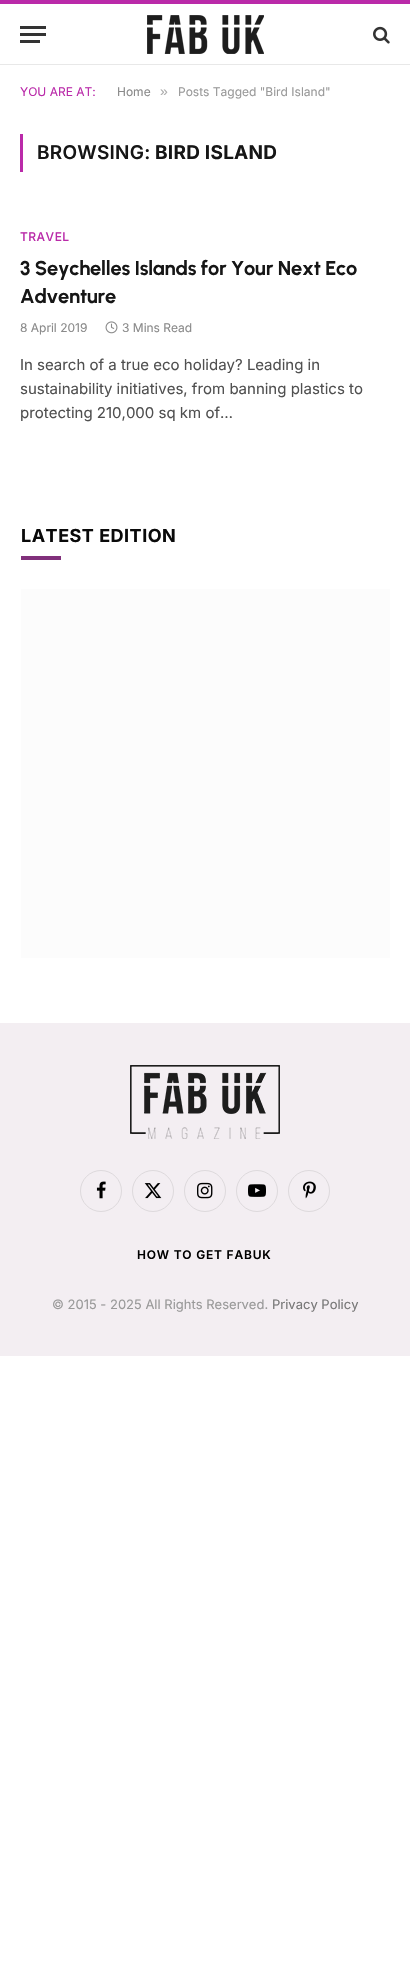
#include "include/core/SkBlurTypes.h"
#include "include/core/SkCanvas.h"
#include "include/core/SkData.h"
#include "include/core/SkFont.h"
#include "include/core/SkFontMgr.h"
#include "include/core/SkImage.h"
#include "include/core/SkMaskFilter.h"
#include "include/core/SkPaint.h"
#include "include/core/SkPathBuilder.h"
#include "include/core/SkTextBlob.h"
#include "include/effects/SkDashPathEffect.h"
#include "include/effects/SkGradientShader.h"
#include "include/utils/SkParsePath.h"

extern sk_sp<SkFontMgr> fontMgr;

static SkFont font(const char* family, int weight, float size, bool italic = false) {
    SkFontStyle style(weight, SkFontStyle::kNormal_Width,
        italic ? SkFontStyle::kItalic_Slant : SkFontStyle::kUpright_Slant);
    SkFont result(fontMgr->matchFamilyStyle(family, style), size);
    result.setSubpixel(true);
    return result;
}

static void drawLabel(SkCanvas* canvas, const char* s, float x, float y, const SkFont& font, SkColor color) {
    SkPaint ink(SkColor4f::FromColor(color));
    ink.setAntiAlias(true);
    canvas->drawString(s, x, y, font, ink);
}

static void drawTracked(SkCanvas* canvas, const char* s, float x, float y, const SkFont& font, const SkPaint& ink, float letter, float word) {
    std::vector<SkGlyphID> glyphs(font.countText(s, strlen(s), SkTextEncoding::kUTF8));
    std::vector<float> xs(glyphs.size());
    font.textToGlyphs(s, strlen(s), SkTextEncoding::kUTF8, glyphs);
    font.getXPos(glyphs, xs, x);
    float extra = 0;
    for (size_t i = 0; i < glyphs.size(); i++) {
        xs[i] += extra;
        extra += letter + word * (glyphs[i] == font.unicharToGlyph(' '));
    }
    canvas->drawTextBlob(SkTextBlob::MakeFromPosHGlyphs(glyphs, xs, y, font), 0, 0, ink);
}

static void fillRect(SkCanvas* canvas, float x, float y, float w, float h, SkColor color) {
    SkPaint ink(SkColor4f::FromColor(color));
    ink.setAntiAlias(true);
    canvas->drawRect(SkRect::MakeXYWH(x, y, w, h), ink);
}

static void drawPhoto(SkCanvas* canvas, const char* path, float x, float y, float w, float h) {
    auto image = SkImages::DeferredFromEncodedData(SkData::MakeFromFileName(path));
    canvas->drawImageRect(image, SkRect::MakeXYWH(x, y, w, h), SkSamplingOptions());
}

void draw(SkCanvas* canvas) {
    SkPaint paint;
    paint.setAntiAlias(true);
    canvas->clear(0xFFFFFFFF);
    fillRect(canvas, 0, 0, 410, 4, 0xFFBA2AA9);
    fillRect(canvas, 0, 64, 410, 1, 0xFFE8E8E8);
    fillRect(canvas, 20, 40, 20, 3, 0xFF333333);
    fillRect(canvas, 20, 26, 26, 3, 0xFF333333);
    fillRect(canvas, 20, 33, 26, 3, 0xFF333333);
    drawPhoto(canvas, "assets/img1.png", 147, 15, 117, 39);
    drawPhoto(canvas, "assets/img2.png", 373, 26, 17, 18);
    SkFont font1 = font("Inter", 400, 12);
    drawLabel(canvas, "YOU ARE AT:", 20, 96, font1, 0xFFBA2AA9);
    drawLabel(canvas, "Home", 117, 96, font1, 0xFF8A8A8A);
    SkFont font2 = font("Liberation Sans", 400, 14);
    drawLabel(canvas, "»", 160, 96, font2, 0xFFADADAD);
    drawLabel(canvas, "Posts Tagged \"Bird Island\"", 178, 96, font1, 0xFF999999);
    fillRect(canvas, 20, 134, 3, 38, 0xFFBA2AA9);
    SkFont font3 = font("Inter", 600, 19);
    paint.setColor(0xFF161616);
    drawTracked(canvas, "BROWSING:", 37, 159, font3, paint, 0.25f, 0);
    SkFont font4 = font("Inter", 700, 19);
    drawTracked(canvas, "BIRD ISLAND", 155, 159, font4, paint, 0.25f, 0);
    SkFont font5 = font("Inter", 500, 12);
    paint.setColor(0xFFBA2AA9);
    drawTracked(canvas, "TRAVEL", 20, 241, font5, paint, 0.5f, 0);
    SkFont font6 = font("Urbanist", 700, 20);
    paint.setColor(0xFF161616);
    drawTracked(canvas, "3 Seychelles Islands for Your Next Eco", 20, 275, font6, paint, -0.2f, 0);
    drawTracked(canvas, "Adventure", 20, 303, font6, paint, -0.2f, 0);
    drawLabel(canvas, "8 April 2019", 20, 332, font1, 0xFF8A8A8A);
    drawPhoto(canvas, "assets/img3.png", 105, 321, 13, 13);
    drawLabel(canvas, "3 Mins Read", 122, 332, font1, 0xFF8A8A8A);
    SkFont font7 = font("Inter", 400, 15);
    drawLabel(canvas, "In search of a true eco holiday? Leading in", 20, 370, font7, 0xFF505050);
    drawLabel(canvas, "sustainability initiatives, from banning plastics to", 20, 394, font7, 0xFF505050);
    drawLabel(canvas, "protecting 210,000 sq km of…", 20, 418, font7, 0xFF505050);
    SkFont font8 = font("Inter", 700, 18);
    paint.setColor(0xFF0A0A0A);
    drawTracked(canvas, "LATEST EDITION", 21, 542, font8, paint, 0.5f, 0);
    fillRect(canvas, 21, 556, 40, 4, 0xFF81307B);
    fillRect(canvas, 21, 589, 369, 369, 0xFFFCFCFC);
    fillRect(canvas, 0, 1023, 410, 333, 0xFFF3EEF2);
    drawPhoto(canvas, "assets/img4.png", 130, 1065, 150, 74);
    paint.setStroke(true);
    paint.setStrokeWidth(1);
    paint.setColor(0xFFDDD9DC);
    canvas->drawCircle(101, 1191, 20.5f, paint);
    drawPhoto(canvas, "assets/img5.png", 96, 1181, 10, 18);
    canvas->drawCircle(153, 1191, 20.5f, paint);
    drawPhoto(canvas, "assets/img6.png", 144, 1183, 18, 16);
    canvas->drawCircle(205, 1191, 20.5f, paint);
    drawPhoto(canvas, "assets/img7.png", 197, 1182, 16, 17);
    canvas->drawCircle(257, 1191, 20.5f, paint);
    drawPhoto(canvas, "assets/img8.png", 248, 1184, 18, 13);
    canvas->drawCircle(309, 1191, 20.5f, paint);
    drawPhoto(canvas, "assets/img9.png", 303, 1181, 13, 18);
    SkFont font9 = font("Inter", 600, 12);
    paint.setStroke(false);
    paint.setColor(0xFF000000);
    drawTracked(canvas, "HOW TO GET FABUK", 137, 1259, font9, paint, 0.8f, 0);
    SkFont font10 = font("Inter", 400, 13);
    drawLabel(canvas, "© 2015 - 2025 All Rights Reserved.", 52, 1309, font10, 0xFF999999);
    drawLabel(canvas, "Privacy Policy", 272, 1309, font10, 0xFF777777);
}
